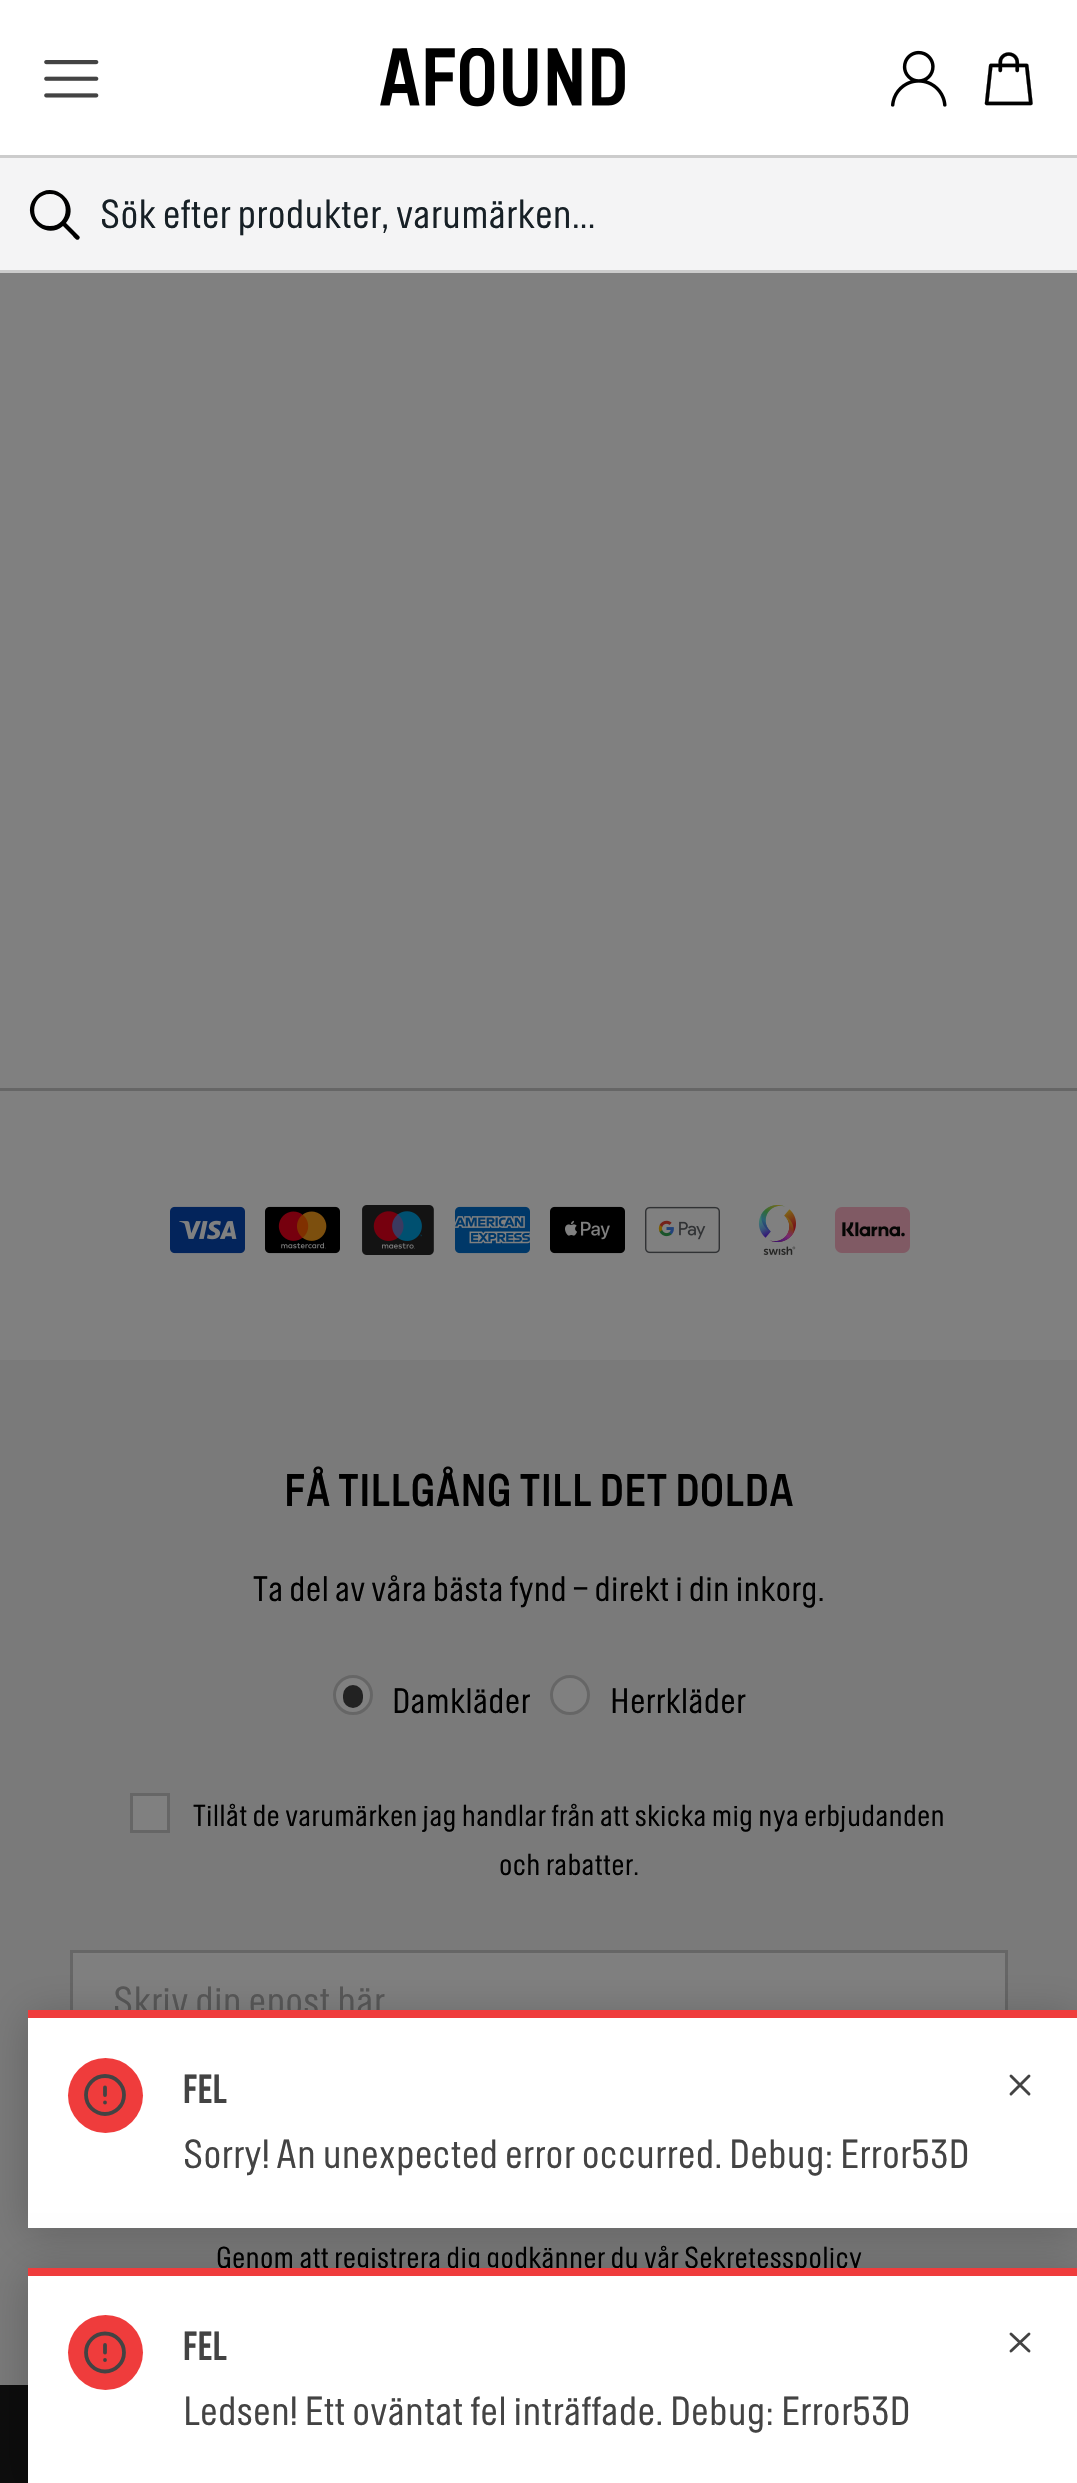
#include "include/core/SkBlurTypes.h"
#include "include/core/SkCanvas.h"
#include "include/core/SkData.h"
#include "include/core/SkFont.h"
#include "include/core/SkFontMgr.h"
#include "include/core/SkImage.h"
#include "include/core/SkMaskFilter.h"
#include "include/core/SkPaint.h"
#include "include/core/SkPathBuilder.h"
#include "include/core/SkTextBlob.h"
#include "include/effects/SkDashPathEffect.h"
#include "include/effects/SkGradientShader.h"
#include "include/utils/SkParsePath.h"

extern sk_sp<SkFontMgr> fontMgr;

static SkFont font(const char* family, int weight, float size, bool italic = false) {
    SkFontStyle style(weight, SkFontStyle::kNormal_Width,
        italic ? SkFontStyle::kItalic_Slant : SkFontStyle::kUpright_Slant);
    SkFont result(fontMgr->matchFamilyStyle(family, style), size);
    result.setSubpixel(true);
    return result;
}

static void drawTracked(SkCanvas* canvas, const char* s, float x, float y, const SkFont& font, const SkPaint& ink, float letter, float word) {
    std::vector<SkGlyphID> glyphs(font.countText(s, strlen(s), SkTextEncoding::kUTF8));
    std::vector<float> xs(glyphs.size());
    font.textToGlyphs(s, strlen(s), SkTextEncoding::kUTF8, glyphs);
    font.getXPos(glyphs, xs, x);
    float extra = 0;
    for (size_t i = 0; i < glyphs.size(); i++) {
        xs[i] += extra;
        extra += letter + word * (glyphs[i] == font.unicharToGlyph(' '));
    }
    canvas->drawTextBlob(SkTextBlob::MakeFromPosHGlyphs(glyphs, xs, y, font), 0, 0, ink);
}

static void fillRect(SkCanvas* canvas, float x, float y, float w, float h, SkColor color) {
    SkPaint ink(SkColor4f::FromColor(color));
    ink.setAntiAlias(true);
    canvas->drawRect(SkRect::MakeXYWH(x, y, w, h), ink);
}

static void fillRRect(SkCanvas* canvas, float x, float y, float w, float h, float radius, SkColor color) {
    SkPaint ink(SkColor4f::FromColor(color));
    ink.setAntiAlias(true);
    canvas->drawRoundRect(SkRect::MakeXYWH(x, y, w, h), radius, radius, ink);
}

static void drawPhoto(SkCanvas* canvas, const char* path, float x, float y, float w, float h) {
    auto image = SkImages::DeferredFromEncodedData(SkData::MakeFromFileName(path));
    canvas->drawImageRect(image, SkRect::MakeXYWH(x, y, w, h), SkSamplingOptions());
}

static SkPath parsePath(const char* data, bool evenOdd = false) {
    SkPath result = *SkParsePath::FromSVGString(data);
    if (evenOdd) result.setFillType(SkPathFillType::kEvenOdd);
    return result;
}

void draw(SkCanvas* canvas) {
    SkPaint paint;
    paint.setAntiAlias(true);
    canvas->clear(0xFF808080);
    fillRect(canvas, 0, 0, 1077, 155, 0xFFFFFFFF);
    drawPhoto(canvas, "assets/img1.png", 44, 60, 55, 38);
    drawPhoto(canvas, "assets/img2.png", 380, 48, 245, 59);
    drawPhoto(canvas, "assets/img3.png", 891, 50, 56, 57);
    drawPhoto(canvas, "assets/img4.png", 984, 52, 49, 54);
    fillRect(canvas, 0, 155, 1077, 3, 0xFFCCCCCC);
    fillRect(canvas, 0, 270, 1077, 3, 0xFFCCCCCC);
    fillRect(canvas, 0, 158, 1077, 112, 0xFFF4F4F5);
    paint.setColor(0xFF000000);
    canvas->drawPath(parsePath("M79 236L66 223C82 204 54 178 36 196C18 214 44 242 63 226L72 235C73 236 77 242 79 239C80 238 80 237 79 236ZM50 226C29 226 29 194 50 194C71 194 71 226 50 226Z"), paint);
    SkFont font1 = font("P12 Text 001", 400, 40);
    paint.setColor(0xFF172026);
    drawTracked(canvas, "Sök efter produkter, varumärken...", 100, 228, font1, paint, 0.25f, 0);
    fillRect(canvas, 0, 1088, 1077, 3, 0xFF666666);
    drawPhoto(canvas, "assets/img5.png", 170, 1206, 75, 48);
    drawPhoto(canvas, "assets/img6.png", 265, 1206, 75, 48);
    drawPhoto(canvas, "assets/img7.png", 362, 1205, 72, 50);
    drawPhoto(canvas, "assets/img8.png", 455, 1206, 75, 48);
    drawPhoto(canvas, "assets/img9.png", 550, 1206, 75, 48);
    drawPhoto(canvas, "assets/img10.png", 645, 1206, 75, 48);
    drawPhoto(canvas, "assets/img11.png", 758, 1205, 38, 50);
    drawPhoto(canvas, "assets/img12.png", 835, 1207, 75, 46);
    fillRect(canvas, 0, 1360, 1077, 1025, 0xFF7A7A7A);
    SkFont font2 = font("P12 Text 001", 700, 45);
    paint.setColor(0xFF000000);
    drawTracked(canvas, "FÅ TILLGÅNG TILL DET DOLDA", 284, 1506, font2, paint, 0.25f, 0);
    SkFont font3 = font("P12 Text 001", 400, 35);
    drawTracked(canvas, "Ta del av våra bästa fynd – direkt i din inkorg.", 253, 1601, font3, paint, 0.25f, 0);
    paint.setColor(0xFF808080);
    canvas->drawCircle(353, 1695, 18.5f, paint);
    paint.setStroke(true);
    paint.setStrokeWidth(3);
    paint.setColor(0xFF666666);
    canvas->drawCircle(353, 1695, 18.5f, paint);
    fillRRect(canvas, 343, 1685, 20, 23, 10, 0xFF222222);
    paint.setStroke(false);
    paint.setColor(0xFF000000);
    drawTracked(canvas, "Damkläder", 392, 1713, font3, paint, 0.25f, 0);
    paint.setColor(0xFF808080);
    canvas->drawCircle(570, 1695, 18.5f, paint);
    paint.setStroke(true);
    paint.setColor(0xFF666666);
    canvas->drawCircle(570, 1695, 18.5f, paint);
    paint.setStroke(false);
    paint.setColor(0xFF000000);
    drawTracked(canvas, "Herrkläder", 610, 1713, font3, paint, 0.25f, 0);
    paint.setColor(0xFF808080);
    canvas->drawRect(SkRect::MakeXYWH(131.5f, 1794.5f, 37, 37), paint);
    paint.setStroke(true);
    paint.setColor(0xFF666666);
    canvas->drawRect(SkRect::MakeXYWH(131.5f, 1794.5f, 37, 37), paint);
    SkFont font4 = font("P12 Text 001", 400, 30);
    paint.setStroke(false);
    paint.setColor(0xFF000000);
    drawTracked(canvas, "Tillåt de varumärken jag handlar från att skicka mig nya erbjudanden", 193, 1826, font4, paint, 0.25f, 0);
    drawTracked(canvas, "och rabatter.", 499, 1875, font4, paint, 0.25f, 0);
    fillRect(canvas, 73, 1953, 932, 57, 0xFF808080);
    paint.setStroke(true);
    paint.setColor(0xFF666666);
    canvas->drawRect(SkRect::MakeXYWH(71.5f, 1951.5f, 935, 97), paint);
    paint.setStroke(false);
    paint.setColor(0xFF585858);
    drawTracked(canvas, "Skriv din epost här", 113, 2015, font1, paint, 0.25f, 0);
    paint.setColor(0xFF000000);
    drawTracked(canvas, "Genom att registrera dig godkänner du vår Sekretesspolicy", 216, 2268, font4, paint, 0.25f, 0);
    fillRect(canvas, 0, 2385, 28, 98, 0xFF0D0D0D);
    paint.setColor(0x33000000);
    paint.setMaskFilter(SkMaskFilter::MakeBlur(kNormal_SkBlurStyle, 20));
    canvas->drawRect(SkRect::MakeXYWH(28, 2015, 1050, 218), paint);
    paint.setMaskFilter(nullptr);
    fillRect(canvas, 28, 2018, 1049, 210, 0xFFFFFFFF);
    fillRect(canvas, 28, 2010, 1049, 8, 0xFFEF3C3C);
    paint.setColor(0xFFEF3C3C);
    canvas->drawCircle(105.5f, 2095.5f, 37.5f, paint);
    paint.setStroke(true);
    paint.setStrokeWidth(3.8f);
    paint.setColor(0xFF434343);
    canvas->drawCircle(105, 2095, 19, paint);
    paint.setStrokeCap(SkPaint::kRound_Cap);
    paint.setStrokeJoin(SkPaint::kRound_Join);
    canvas->drawPath(parsePath("M105 2087.5V2095M105 2102.5H105"), paint);
    SkFont font5 = font("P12", 700, 40);
    paint.setStroke(false);
    drawTracked(canvas, "Fel", 183, 2103, font5, paint, 0.25f, 0);
    paint.setStroke(true);
    paint.setStrokeWidth(2.9f);
    canvas->drawPath(parsePath("M1029 2076L1011 2094M1011 2076L1029 2094"), paint);
    paint.setStroke(false);
    drawTracked(canvas, "Sorry! An unexpected error occurred. Debug: Error53D", 183, 2168, font1, paint, 0.25f, 0);
    paint.setColor(0x33000000);
    paint.setMaskFilter(SkMaskFilter::MakeBlur(kNormal_SkBlurStyle, 20));
    canvas->drawRect(SkRect::MakeXYWH(28, 2273, 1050, 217), paint);
    paint.setMaskFilter(nullptr);
    fillRect(canvas, 28, 2276, 1049, 207, 0xFFFFFFFF);
    fillRect(canvas, 28, 2268, 1049, 8, 0xFFEF3C3C);
    paint.setColor(0xFFEF3C3C);
    canvas->drawCircle(105.5f, 2352.5f, 37.5f, paint);
    paint.setStroke(true);
    paint.setStrokeWidth(3.8f);
    paint.setStrokeCap(SkPaint::kButt_Cap);
    paint.setStrokeJoin(SkPaint::kMiter_Join);
    paint.setColor(0xFF434343);
    canvas->drawCircle(105, 2352.5f, 19, paint);
    paint.setStrokeCap(SkPaint::kRound_Cap);
    paint.setStrokeJoin(SkPaint::kRound_Join);
    canvas->drawPath(parsePath("M105 2345V2352.5M105 2360H105"), paint);
    paint.setStroke(false);
    drawTracked(canvas, "Fel", 183, 2360, font5, paint, 0.25f, 0);
    paint.setStroke(true);
    paint.setStrokeWidth(2.9f);
    canvas->drawPath(parsePath("M1029 2334L1011 2351M1011 2334L1029 2351"), paint);
    paint.setStroke(false);
    drawTracked(canvas, "Ledsen! Ett oväntat fel inträffade. Debug: Error53D", 183, 2425, font1, paint, 0.25f, 0);
}
